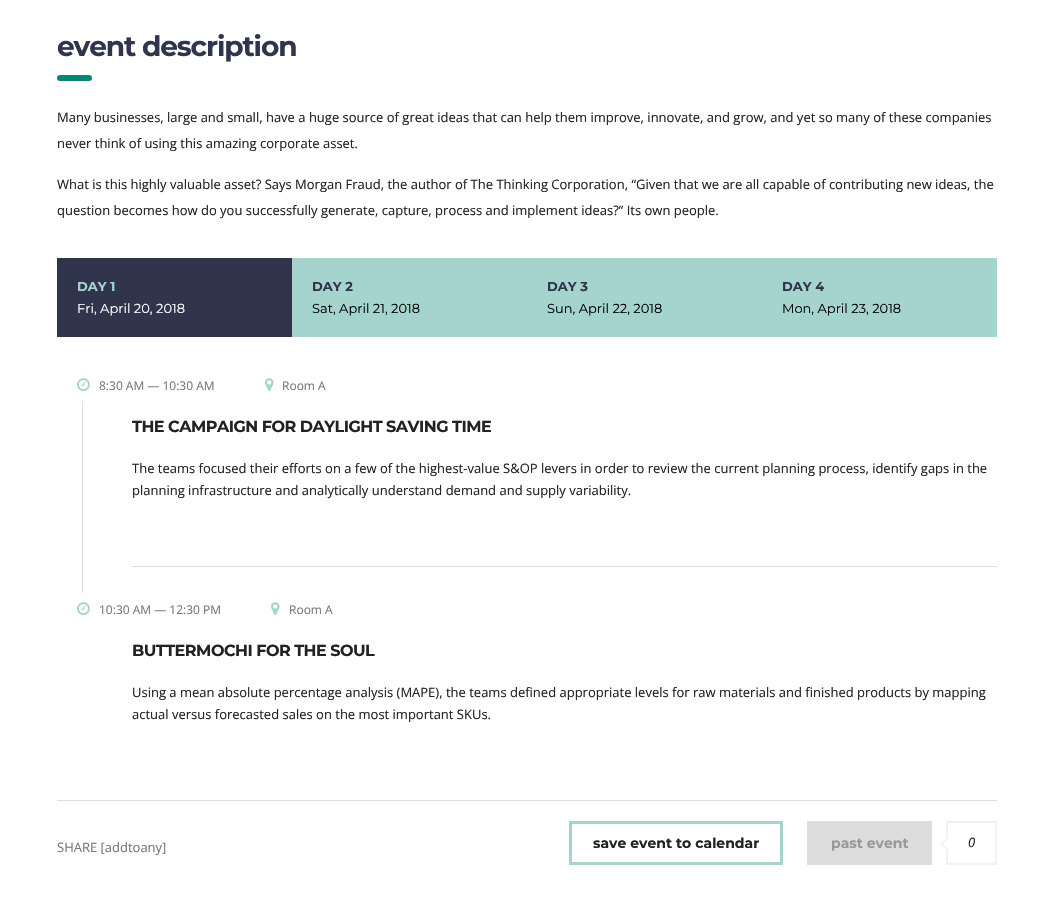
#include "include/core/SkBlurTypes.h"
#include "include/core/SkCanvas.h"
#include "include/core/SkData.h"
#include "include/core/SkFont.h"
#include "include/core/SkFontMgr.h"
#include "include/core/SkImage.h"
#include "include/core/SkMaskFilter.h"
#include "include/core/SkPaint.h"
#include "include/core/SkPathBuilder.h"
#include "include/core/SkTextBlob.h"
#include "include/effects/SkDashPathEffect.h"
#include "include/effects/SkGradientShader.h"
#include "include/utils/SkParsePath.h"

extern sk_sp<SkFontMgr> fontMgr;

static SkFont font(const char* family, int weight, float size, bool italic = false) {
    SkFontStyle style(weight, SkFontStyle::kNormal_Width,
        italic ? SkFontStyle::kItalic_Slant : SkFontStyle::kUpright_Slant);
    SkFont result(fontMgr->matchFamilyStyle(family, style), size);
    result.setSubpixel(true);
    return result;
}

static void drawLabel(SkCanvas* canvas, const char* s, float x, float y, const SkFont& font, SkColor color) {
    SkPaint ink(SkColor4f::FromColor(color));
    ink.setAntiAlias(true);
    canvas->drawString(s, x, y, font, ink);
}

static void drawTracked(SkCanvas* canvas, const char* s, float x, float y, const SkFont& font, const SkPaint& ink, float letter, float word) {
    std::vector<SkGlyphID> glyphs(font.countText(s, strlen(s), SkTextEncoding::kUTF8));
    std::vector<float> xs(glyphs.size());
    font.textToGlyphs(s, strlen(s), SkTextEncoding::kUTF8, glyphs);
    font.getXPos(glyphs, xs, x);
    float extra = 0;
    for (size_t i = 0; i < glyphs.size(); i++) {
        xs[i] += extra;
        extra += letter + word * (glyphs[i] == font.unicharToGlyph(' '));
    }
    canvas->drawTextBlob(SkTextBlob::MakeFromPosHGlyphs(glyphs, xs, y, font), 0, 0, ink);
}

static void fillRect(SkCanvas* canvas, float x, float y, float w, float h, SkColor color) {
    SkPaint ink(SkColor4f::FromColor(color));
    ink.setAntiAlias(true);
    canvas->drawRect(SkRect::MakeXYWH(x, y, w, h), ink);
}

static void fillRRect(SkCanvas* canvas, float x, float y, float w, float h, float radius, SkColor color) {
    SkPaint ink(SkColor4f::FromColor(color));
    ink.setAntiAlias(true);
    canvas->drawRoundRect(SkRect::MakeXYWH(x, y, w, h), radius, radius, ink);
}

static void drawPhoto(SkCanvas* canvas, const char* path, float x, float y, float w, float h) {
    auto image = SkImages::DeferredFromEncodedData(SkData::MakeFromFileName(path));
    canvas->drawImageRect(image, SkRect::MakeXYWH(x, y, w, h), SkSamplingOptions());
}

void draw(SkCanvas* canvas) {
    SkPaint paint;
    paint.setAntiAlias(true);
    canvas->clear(0xFFFFFFFF);
    SkFont font1 = font("Montserrat", 700, 28);
    paint.setColor(0xFF30344D);
    drawTracked(canvas, "event description", 57, 56, font1, paint, -1.1f, 0);
    fillRRect(canvas, 57, 75, 35, 6, 3, 0xFF038875);
    SkFont font2 = font("Open Sans", 400, 13);
    drawLabel(canvas, "Many businesses, large and small, have a huge source of great ideas that can help them improve, innovate, and grow, and yet so many of these companies", 57, 122, font2, 0xFF222222);
    drawLabel(canvas, "never think of using this amazing corporate asset.", 57, 148, font2, 0xFF222222);
    drawLabel(canvas, "What is this highly valuable asset? Says Morgan Fraud, the author of The Thinking Corporation, “Given that we are all capable of contributing new ideas, the", 57, 189, font2, 0xFF222222);
    drawLabel(canvas, "question becomes how do you successfully generate, capture, process and implement ideas?” Its own people.", 57, 215, font2, 0xFF222222);
    fillRect(canvas, 57, 258, 235, 79, 0xFF30344D);
    SkFont font3 = font("Montserrat", 700, 13);
    drawLabel(canvas, "DAY 1", 77, 291, font3, 0xFFA5D4CE);
    SkFont font4 = font("Montserrat", 400, 13);
    drawLabel(canvas, "Fri, April 20, 2018", 77, 313, font4, 0xFFFFFFFF);
    fillRect(canvas, 292, 258, 705, 79, 0xFFA5D4CE);
    drawLabel(canvas, "DAY 2", 312, 291, font3, 0xFF30344D);
    drawLabel(canvas, "Sat, April 21, 2018", 312, 313, font4, 0xFF010101);
    drawLabel(canvas, "DAY 3", 547, 291, font3, 0xFF30344D);
    drawLabel(canvas, "Sun, April 22, 2018", 547, 313, font4, 0xFF010101);
    drawLabel(canvas, "DAY 4", 782, 291, font3, 0xFF30344D);
    drawLabel(canvas, "Mon, April 23, 2018", 782, 313, font4, 0xFF010101);
    drawPhoto(canvas, "assets/img1.png", 77, 378, 13, 13);
    SkFont font5 = font("Open Sans", 400, 12);
    drawLabel(canvas, "8:30 AM — 10:30 AM", 99, 390, font5, 0xFF777777);
    drawPhoto(canvas, "assets/img2.png", 265, 378, 9, 13);
    drawLabel(canvas, "Room A", 282, 390, font5, 0xFF777777);
    fillRect(canvas, 82, 401, 1, 192, 0xFFDDDDDD);
    fillRect(canvas, 132, 566, 865, 1, 0xFFDDDDDD);
    SkFont font6 = font("Montserrat", 700, 16);
    paint.setColor(0xFF222222);
    drawTracked(canvas, "THE CAMPAIGN FOR DAYLIGHT SAVING TIME", 132, 432, font6, paint, -0.5f, 0);
    drawLabel(canvas, "The teams focused their efforts on a few of the highest-value S&OP levers in order to review the current planning process, identify gaps in the", 132, 473, font2, 0xFF222222);
    drawLabel(canvas, "planning infrastructure and analytically understand demand and supply variability.", 132, 495, font2, 0xFF222222);
    drawPhoto(canvas, "assets/img1.png", 77, 602, 13, 13);
    drawLabel(canvas, "10:30 AM — 12:30 PM", 99, 614, font5, 0xFF777777);
    drawPhoto(canvas, "assets/img2.png", 271, 602, 9, 13);
    drawLabel(canvas, "Room A", 289, 614, font5, 0xFF777777);
    drawTracked(canvas, "BUTTERMOCHI FOR THE SOUL", 132, 656, font6, paint, -0.5f, 0);
    drawLabel(canvas, "Using a mean absolute percentage analysis (MAPE), the teams defined appropriate levels for raw materials and finished products by mapping", 132, 697, font2, 0xFF222222);
    drawLabel(canvas, "actual versus forecasted sales on the most important SKUs.", 132, 719, font2, 0xFF222222);
    fillRect(canvas, 57, 800, 940, 1, 0xFFDDDDDD);
    drawLabel(canvas, "SHARE [addtoany]", 57, 852, font2, 0xFF777777);
    paint.setStroke(true);
    paint.setStrokeWidth(3);
    paint.setColor(0xFFA5D4CE);
    canvas->drawRect(SkRect::MakeXYWH(570.5f, 822.5f, 211, 41), paint);
    SkFont font7 = font("Montserrat", 700, 14);
    drawLabel(canvas, "save event to calendar", 593, 848, font7, 0xFF222222);
    fillRect(canvas, 807, 821, 125, 44, 0xFFDDDDDD);
    drawLabel(canvas, "past event", 831, 848, font7, 0xFF999999);
    paint.setStrokeWidth(2);
    paint.setColor(0xFFF2F2F2);
    canvas->drawRect(SkRect::MakeXYWH(947, 822, 49, 42), paint);
    fillRect(canvas, 946, 838, 2, 11, 0xFFFFFFFF);
    drawPhoto(canvas, "assets/img3.png", 941, 838, 7, 11);
    SkFont font8 = font("Open Sans", 400, 13, true);
    drawLabel(canvas, "0", 968, 847, font8, 0xFF222222);
}
